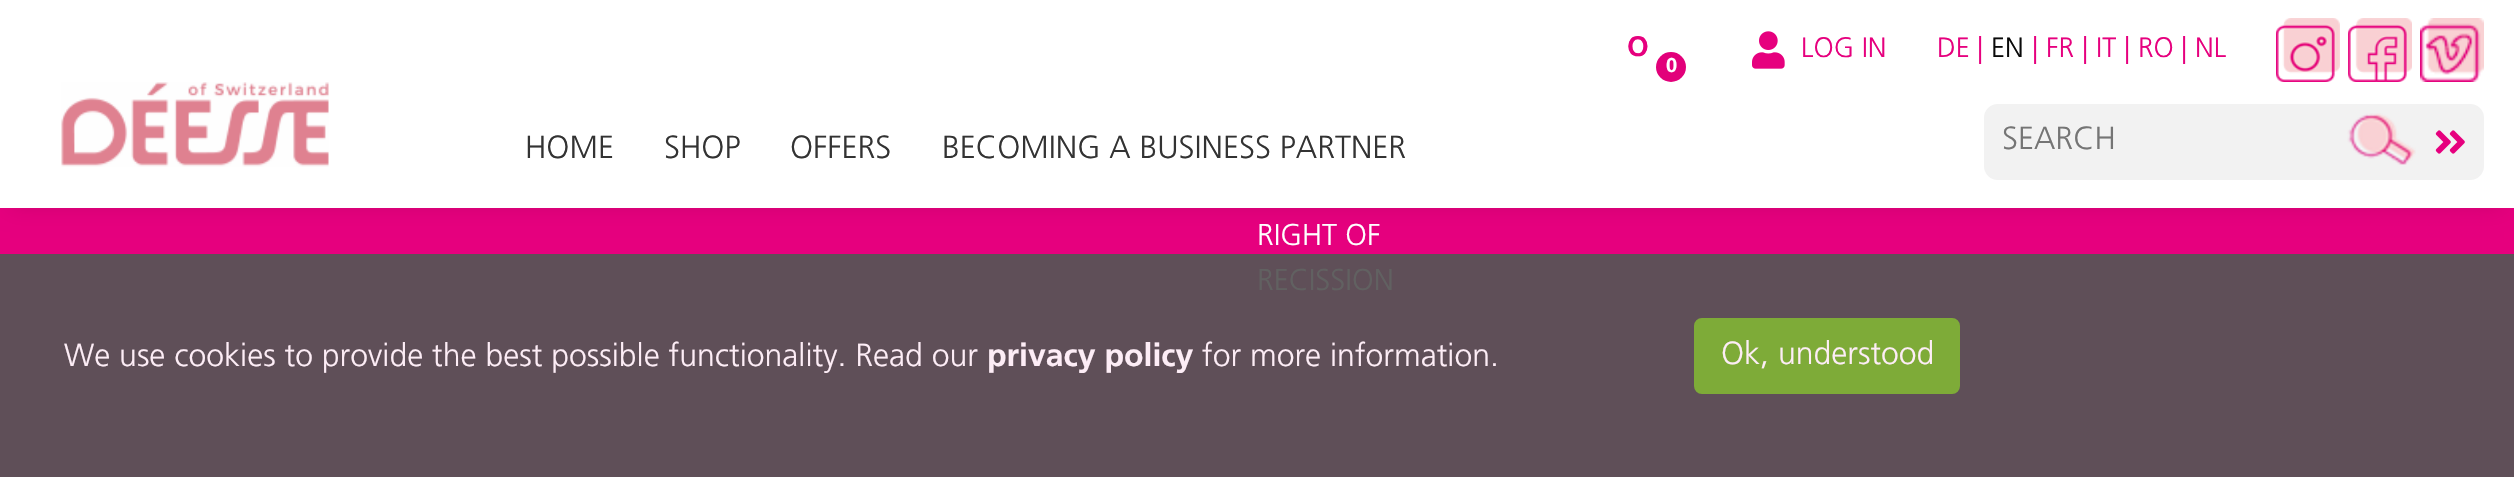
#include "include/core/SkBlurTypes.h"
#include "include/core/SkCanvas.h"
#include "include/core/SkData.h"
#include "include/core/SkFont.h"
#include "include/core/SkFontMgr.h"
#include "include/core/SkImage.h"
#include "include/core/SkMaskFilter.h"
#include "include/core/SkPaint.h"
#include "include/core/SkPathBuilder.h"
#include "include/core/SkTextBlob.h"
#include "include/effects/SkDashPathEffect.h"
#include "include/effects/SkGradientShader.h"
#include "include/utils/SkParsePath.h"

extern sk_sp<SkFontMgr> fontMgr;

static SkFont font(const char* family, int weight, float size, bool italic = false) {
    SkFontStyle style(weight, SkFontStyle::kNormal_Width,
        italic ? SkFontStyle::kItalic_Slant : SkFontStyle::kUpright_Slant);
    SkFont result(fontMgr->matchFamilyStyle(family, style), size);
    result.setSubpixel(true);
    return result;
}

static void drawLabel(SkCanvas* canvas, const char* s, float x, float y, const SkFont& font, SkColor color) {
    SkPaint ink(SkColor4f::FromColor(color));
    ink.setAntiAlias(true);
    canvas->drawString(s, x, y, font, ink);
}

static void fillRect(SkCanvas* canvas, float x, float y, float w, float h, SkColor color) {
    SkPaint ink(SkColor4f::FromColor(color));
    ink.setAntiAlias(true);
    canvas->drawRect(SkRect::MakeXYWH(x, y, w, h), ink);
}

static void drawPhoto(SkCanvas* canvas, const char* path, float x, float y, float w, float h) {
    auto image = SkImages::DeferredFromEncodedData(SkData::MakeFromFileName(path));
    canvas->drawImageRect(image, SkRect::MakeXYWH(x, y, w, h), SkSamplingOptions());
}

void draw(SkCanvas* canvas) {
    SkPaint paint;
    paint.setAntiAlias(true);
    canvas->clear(0xFFE6007E);
    paint.setColor(0x1A000000);
    paint.setMaskFilter(SkMaskFilter::MakeBlur(kNormal_SkBlurStyle, 10));
    canvas->drawRect(SkRect::MakeXYWH(10, 20, 2494, 188), paint);
    paint.setMaskFilter(nullptr);
    fillRect(canvas, 0, 0, 2514, 208, 0xFFFFFFFF);
    SkFont font1 = font("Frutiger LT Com", 700, 28);
    drawLabel(canvas, "O", 1627, 56, font1, 0xFFE6007E);
    paint.setColor(0xFFE2007A);
    canvas->drawCircle(1671, 67, 15, paint);
    SkFont font2 = font("Frutiger LT Com", 700, 20);
    drawLabel(canvas, "0", 1666, 72, font2, 0xFFFFFFFF);
    drawPhoto(canvas, "assets/img1.png", 1752, 31, 33, 38);
    SkFont font3 = font("Frutiger LT Com", 300, 28);
    drawLabel(canvas, "LOG IN", 1801, 57, font3, 0xFFE6007E);
    drawLabel(canvas, "DE", 1937, 57, font3, 0xFFE6007E);
    drawLabel(canvas, "|", 1977, 57, font3, 0xFFE6007E);
    drawLabel(canvas, "EN", 1991, 57, font3, 0xFF0A0A0A);
    drawLabel(canvas, "|", 2032, 57, font3, 0xFFE6007E);
    drawLabel(canvas, "FR", 2046, 57, font3, 0xFFE6007E);
    drawLabel(canvas, "|", 2082, 57, font3, 0xFFE6007E);
    drawLabel(canvas, "IT", 2096, 57, font3, 0xFFE6007E);
    drawLabel(canvas, "|", 2124, 57, font3, 0xFFE6007E);
    drawLabel(canvas, "RO", 2138, 57, font3, 0xFFE6007E);
    drawLabel(canvas, "|", 2181, 57, font3, 0xFFE6007E);
    drawLabel(canvas, "NL", 2195, 57, font3, 0xFFE6007E);
    drawPhoto(canvas, "assets/img2.png", 2276, 18, 64, 64);
    drawPhoto(canvas, "assets/img3.png", 2348, 18, 64, 64);
    drawPhoto(canvas, "assets/img4.png", 2420, 18, 64, 64);
    drawPhoto(canvas, "assets/img5.png", 61, 82, 268, 85);
    SkFont font4 = font("Frutiger LT Com", 300, 32);
    drawLabel(canvas, "HOME", 525, 158, font4, 0xFF333333);
    drawLabel(canvas, "SHOP", 664, 158, font4, 0xFF333333);
    drawLabel(canvas, "OFFERS", 790, 158, font4, 0xFF333333);
    drawLabel(canvas, "BECOMING A BUSINESS PARTNER", 942, 158, font4, 0xFF333333);
    paint.setColor(0xFFF2F2F2);
    canvas->drawRoundRect(SkRect::MakeXYWH(1985, 105, 498, 74), 13, 13, paint);
    paint.setStroke(true);
    paint.setStrokeWidth(2);
    canvas->drawRoundRect(SkRect::MakeXYWH(1985, 105, 498, 74), 13, 13, paint);
    drawLabel(canvas, "SEARCH", 2002, 149, font4, 0xFF757575);
    drawPhoto(canvas, "assets/img6.png", 2347, 113, 69, 52);
    drawPhoto(canvas, "assets/img7.png", 2435, 130, 30, 24);
    fillRect(canvas, 0, 254, 2514, 223, 0xFF5F4F58);
    SkFont font5 = font("Frutiger LT Com", 300, 30);
    drawLabel(canvas, "RIGHT OF", 1257, 245, font5, 0xFFFFFFFF);
    drawLabel(canvas, "RECISSION", 1257, 290, font5, 0xFF616161);
    drawLabel(canvas, "We use cookies to provide the best possible functionality. Read our", 64, 366, font4, 0xFFFDEDF6);
    SkFont font6 = font("Frutiger LT Com", 700, 32);
    drawLabel(canvas, "privacy policy", 987, 366, font6, 0xFFFDEDF6);
    drawLabel(canvas, "for more information.", 1202, 366, font4, 0xFFFDEDF6);
    paint.setStroke(false);
    paint.setColor(0xFF7EAB38);
    canvas->drawRoundRect(SkRect::MakeXYWH(1695, 319, 264, 74), 7, 7, paint);
    paint.setStroke(true);
    canvas->drawRoundRect(SkRect::MakeXYWH(1695, 319, 264, 74), 7, 7, paint);
    drawLabel(canvas, "Ok, understood", 1721, 364, font4, 0xFFFDEDF6);
}
